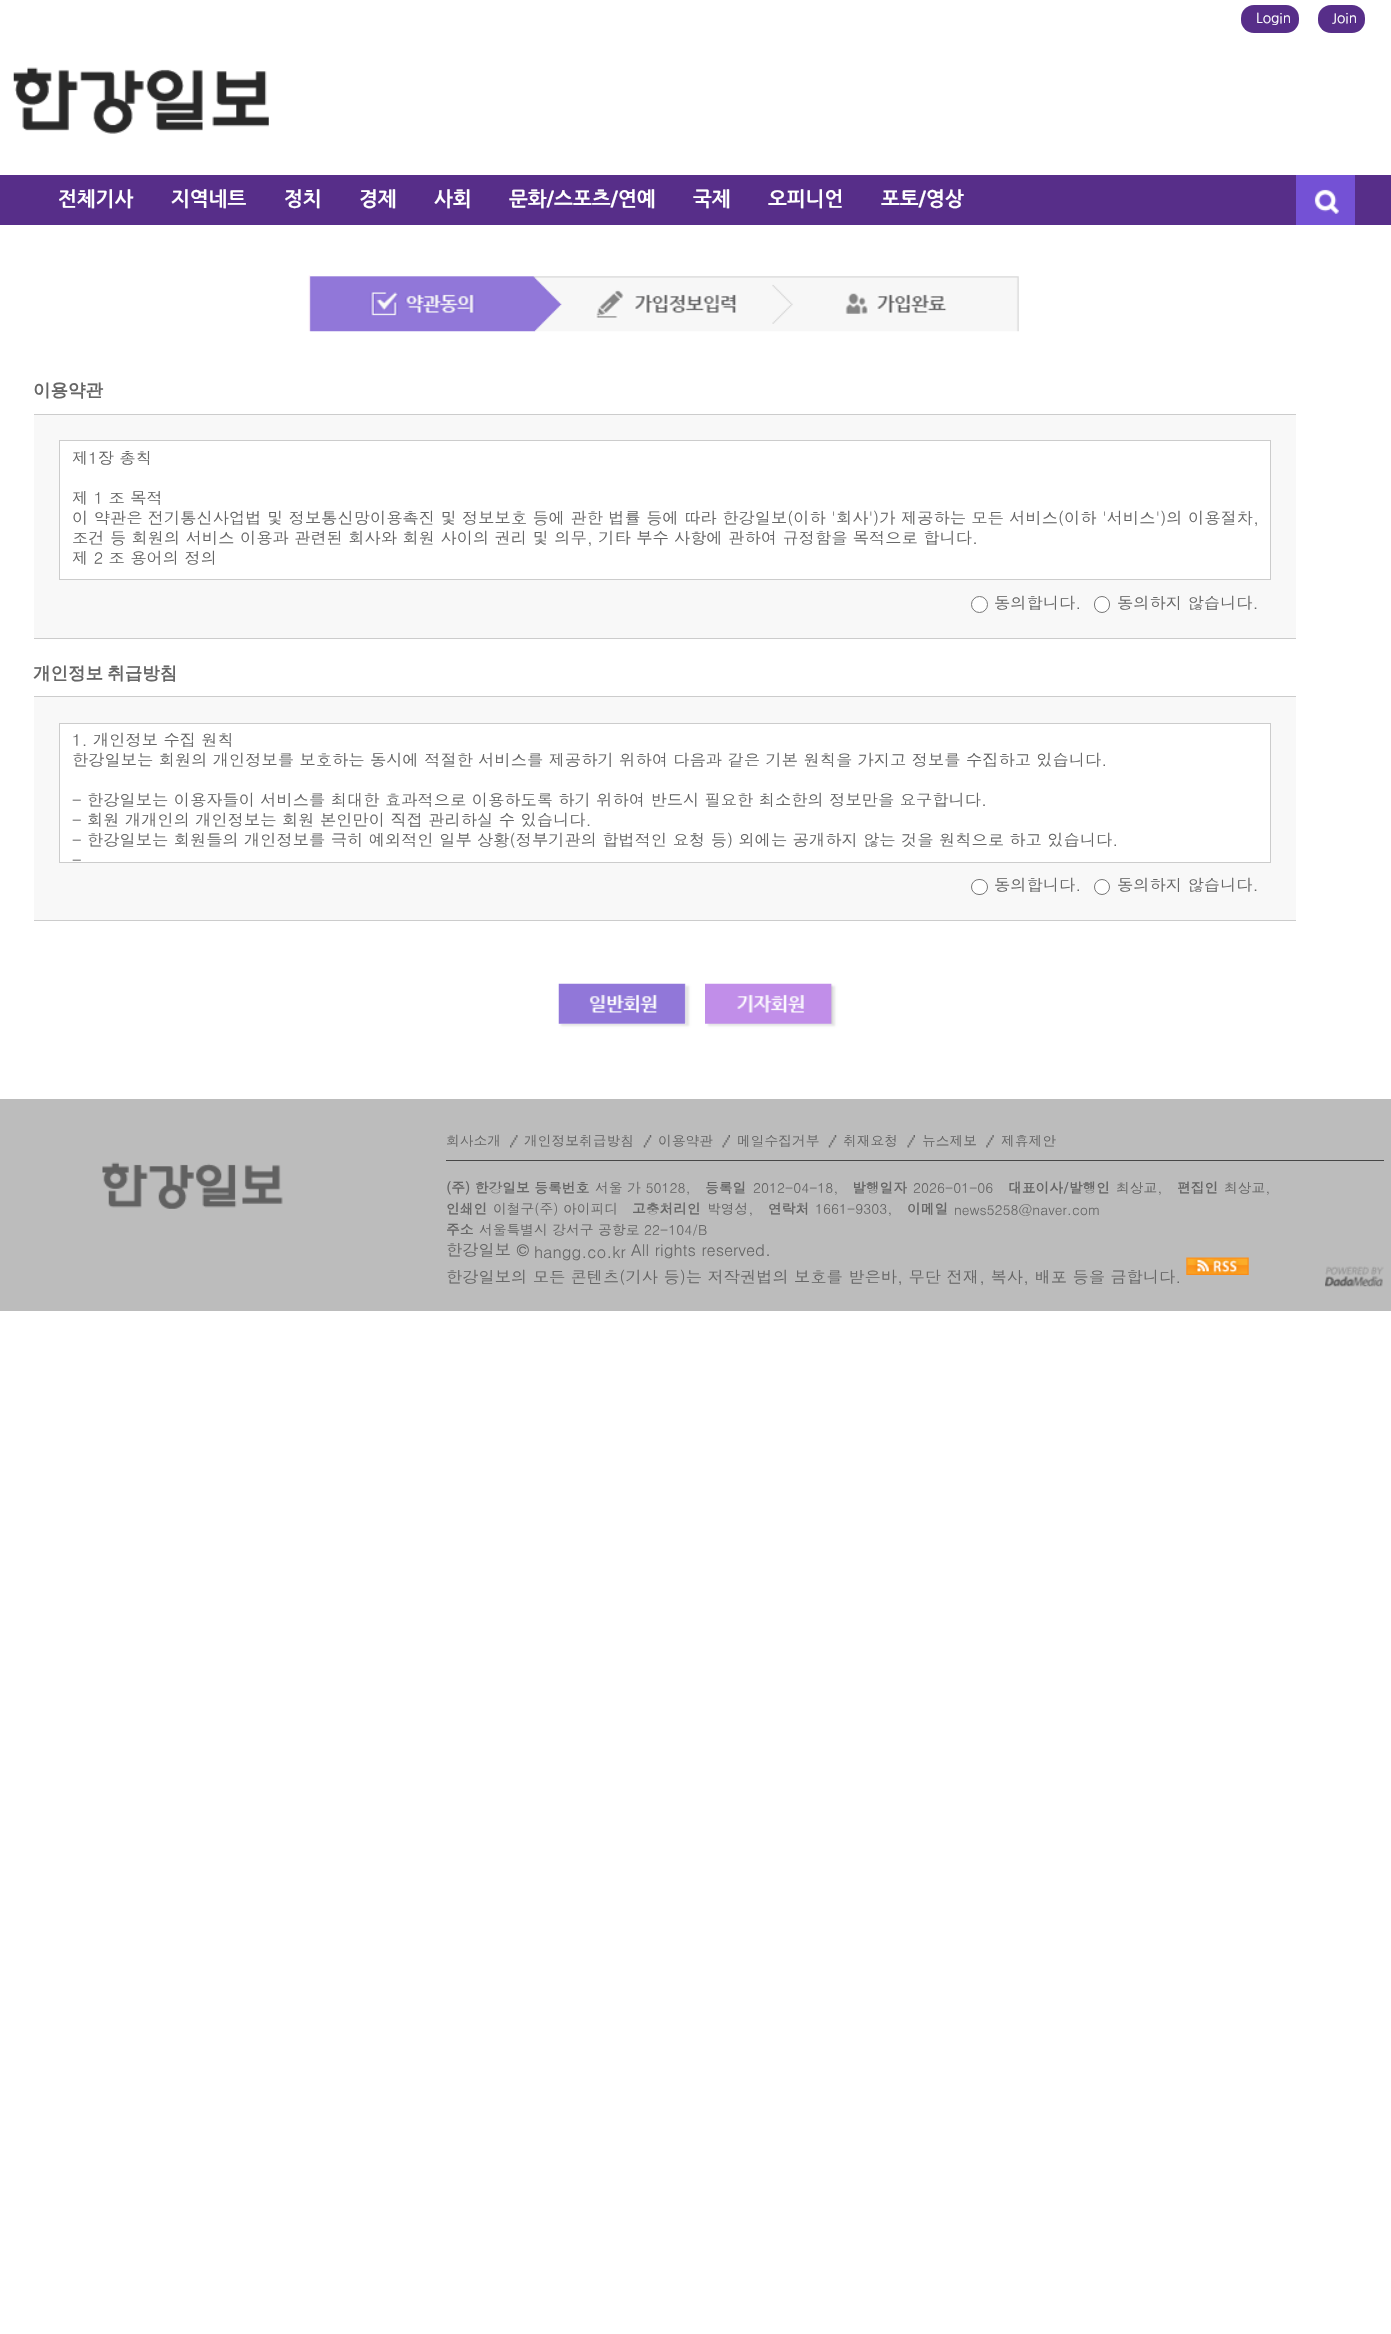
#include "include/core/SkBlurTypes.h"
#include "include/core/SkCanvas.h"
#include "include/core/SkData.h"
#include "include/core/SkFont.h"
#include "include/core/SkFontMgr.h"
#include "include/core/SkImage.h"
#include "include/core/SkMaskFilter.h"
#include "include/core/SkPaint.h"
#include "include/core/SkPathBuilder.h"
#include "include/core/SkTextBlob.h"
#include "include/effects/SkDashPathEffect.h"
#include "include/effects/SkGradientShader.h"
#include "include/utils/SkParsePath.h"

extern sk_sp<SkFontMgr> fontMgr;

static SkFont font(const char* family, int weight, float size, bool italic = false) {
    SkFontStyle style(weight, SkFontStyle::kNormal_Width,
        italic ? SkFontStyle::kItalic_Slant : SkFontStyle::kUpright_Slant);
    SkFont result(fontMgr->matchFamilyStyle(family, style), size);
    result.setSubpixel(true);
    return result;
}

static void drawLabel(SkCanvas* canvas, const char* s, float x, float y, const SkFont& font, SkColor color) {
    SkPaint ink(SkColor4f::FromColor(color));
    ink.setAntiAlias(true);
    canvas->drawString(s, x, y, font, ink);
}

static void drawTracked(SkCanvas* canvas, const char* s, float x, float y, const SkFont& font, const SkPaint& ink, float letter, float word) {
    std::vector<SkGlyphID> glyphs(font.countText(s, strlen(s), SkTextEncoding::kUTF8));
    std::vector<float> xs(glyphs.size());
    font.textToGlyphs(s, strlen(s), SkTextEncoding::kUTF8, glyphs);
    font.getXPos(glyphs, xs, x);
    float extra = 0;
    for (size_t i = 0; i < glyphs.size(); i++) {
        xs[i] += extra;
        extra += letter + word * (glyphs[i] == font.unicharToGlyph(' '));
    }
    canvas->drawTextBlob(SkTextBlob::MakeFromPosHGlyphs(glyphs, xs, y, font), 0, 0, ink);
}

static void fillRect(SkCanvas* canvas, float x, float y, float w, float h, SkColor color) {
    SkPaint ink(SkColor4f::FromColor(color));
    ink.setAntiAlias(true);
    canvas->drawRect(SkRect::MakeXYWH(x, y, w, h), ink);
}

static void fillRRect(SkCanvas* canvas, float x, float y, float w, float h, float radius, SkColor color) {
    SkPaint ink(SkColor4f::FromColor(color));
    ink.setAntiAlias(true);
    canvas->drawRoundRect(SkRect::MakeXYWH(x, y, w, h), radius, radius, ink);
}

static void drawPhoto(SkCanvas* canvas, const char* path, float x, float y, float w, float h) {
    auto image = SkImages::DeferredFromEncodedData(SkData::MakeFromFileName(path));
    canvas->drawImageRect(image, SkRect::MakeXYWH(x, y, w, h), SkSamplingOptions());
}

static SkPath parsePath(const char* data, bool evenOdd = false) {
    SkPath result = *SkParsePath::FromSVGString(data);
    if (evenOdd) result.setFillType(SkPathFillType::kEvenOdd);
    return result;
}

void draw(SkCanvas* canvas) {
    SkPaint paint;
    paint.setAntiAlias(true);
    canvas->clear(0xFFFFFFFF);
    fillRRect(canvas, 1241, 5, 58, 28, 13, 0xFF572E89);
    SkFont font1 = font("NanumGothic", 400, 13.75f);
    drawLabel(canvas, "Login", 1256, 23, font1, 0xFFFFFFFF);
    fillRRect(canvas, 1318, 5, 47, 28, 13, 0xFF572E89);
    drawLabel(canvas, "Join", 1332, 23, font1, 0xFFFFFFFF);
    drawPhoto(canvas, "assets/img1.png", 13, 67, 256, 67);
    fillRect(canvas, 0, 175, 1391, 50, 0xFF572E89);
    SkFont font2 = font("NanumGothic", 700, 20);
    drawLabel(canvas, "전체기사", 58, 206, font2, 0xFFFFFFFF);
    drawLabel(canvas, "지역네트", 171, 206, font2, 0xFFFFFFFF);
    drawLabel(canvas, "정치", 284, 206, font2, 0xFFFFFFFF);
    drawLabel(canvas, "경제", 359, 206, font2, 0xFFFFFFFF);
    drawLabel(canvas, "사회", 434, 206, font2, 0xFFFFFFFF);
    drawLabel(canvas, "문화/스포츠/연예", 509, 206, font2, 0xFFFFFFFF);
    drawLabel(canvas, "국제", 693, 206, font2, 0xFFFFFFFF);
    drawLabel(canvas, "오피니언", 768, 206, font2, 0xFFFFFFFF);
    drawLabel(canvas, "포토/영상", 881, 206, font2, 0xFFFFFFFF);
    fillRect(canvas, 1296, 175, 59, 50, 0xFF7451D5);
    drawPhoto(canvas, "assets/img2.png", 1314, 189, 25, 25);
    drawPhoto(canvas, "assets/img3.png", 308, 275, 711, 57);
    SkFont font3 = font("WenQuanYi Zen Hei", 700, 17.5f);
    drawLabel(canvas, "이용약관", 33, 396, font3, 0xFF666666);
    fillRect(canvas, 34, 415, 1262, 223, 0xFFF8F8F8);
    fillRect(canvas, 34, 414, 1262, 1, 0xFFCCCCCC);
    fillRect(canvas, 34, 638, 1262, 1, 0xFFCCCCCC);
    paint.setColor(0xFFFFFFFF);
    canvas->drawRect(SkRect::MakeXYWH(59.5f, 440.5f, 1211, 139), paint);
    paint.setStroke(true);
    paint.setStrokeWidth(1);
    paint.setColor(0xFFCCCCCC);
    canvas->drawRect(SkRect::MakeXYWH(59.5f, 440.5f, 1211, 139), paint);
    SkFont font4 = font("Dotum", 400, 16.25f);
    drawLabel(canvas, "제1장 총칙", 72, 464, font4, 0xFF666666);
    drawLabel(canvas, "제 1 조 목적", 72, 504, font4, 0xFF666666);
    drawLabel(canvas, "이 약관은 전기통신사업법 및 정보통신망이용촉진 및 정보보호 등에 관한 법률 등에 따라 한강일보(이하 '회사')가 제공하는 모든 서비스(이하 '서비스')의 이용절차,", 72, 524, font4, 0xFF666666);
    drawLabel(canvas, "조건 등 회원의 서비스 이용과 관련된 회사와 회원 사이의 권리 및 의무, 기타 부수 사항에 관하여 규정함을 목적으로 합니다.", 72, 544, font4, 0xFF666666);
    drawLabel(canvas, "제 2 조 용어의 정의", 72, 564, font4, 0xFF666666);
    paint.setStroke(false);
    paint.setColor(0xFFFFFFFF);
    canvas->drawCircle(979.5f, 604.5f, 8, paint);
    paint.setStroke(true);
    paint.setColor(0xFF767676);
    canvas->drawCircle(979.5f, 604.5f, 8, paint);
    drawLabel(canvas, "동의합니다.", 994, 609, font4, 0xFF666666);
    paint.setStroke(false);
    paint.setColor(0xFFFFFFFF);
    canvas->drawRoundRect(SkRect::MakeXYWH(1094.5f, 596.5f, 15, 16), 7.5f, 7.5f, paint);
    paint.setStroke(true);
    paint.setColor(0xFF767676);
    canvas->drawRoundRect(SkRect::MakeXYWH(1094.5f, 596.5f, 15, 16), 7.5f, 7.5f, paint);
    drawLabel(canvas, "동의하지 않습니다.", 1117, 609, font4, 0xFF666666);
    paint.setStroke(false);
    paint.setColor(0xFF666666);
    drawTracked(canvas, "개인정보 취급방침", 33, 679, font3, paint, 0, -1);
    fillRect(canvas, 34, 697, 1262, 223, 0xFFF8F8F8);
    fillRect(canvas, 34, 696, 1262, 1, 0xFFCCCCCC);
    fillRect(canvas, 34, 920, 1262, 1, 0xFFCCCCCC);
    paint.setColor(0xFFFFFFFF);
    canvas->drawRect(SkRect::MakeXYWH(59.5f, 723.5f, 1211, 139), paint);
    paint.setStroke(true);
    paint.setColor(0xFFCCCCCC);
    canvas->drawRect(SkRect::MakeXYWH(59.5f, 723.5f, 1211, 139), paint);
    drawLabel(canvas, "1. 개인정보 수집 원칙", 72, 746, font4, 0xFF666666);
    drawLabel(canvas, "한강일보는 회원의 개인정보를 보호하는 동시에 적절한 서비스를 제공하기 위하여 다음과 같은 기본 원칙을 가지고 정보를 수집하고 있습니다.", 72, 766, font4, 0xFF666666);
    drawLabel(canvas, "- 한강일보는 이용자들이 서비스를 최대한 효과적으로 이용하도록 하기 위하여 반드시 필요한 최소한의 정보만을 요구합니다.", 72, 806, font4, 0xFF666666);
    drawLabel(canvas, "- 회원 개개인의 개인정보는 회원 본인만이 직접 관리하실 수 있습니다.", 72, 826, font4, 0xFF666666);
    drawLabel(canvas, "- 한강일보는 회원들의 개인정보를 극히 예외적인 일부 상황(정부기관의 합법적인 요청 등) 외에는 공개하지 않는 것을 원칙으로 하고 있습니다.", 72, 846, font4, 0xFF666666);
    drawLabel(canvas, "-", 72, 866, font4, 0xFF666666);
    paint.setStroke(false);
    paint.setColor(0xFFFFFFFF);
    canvas->drawRoundRect(SkRect::MakeXYWH(971.5f, 879.5f, 16, 15), 7.5f, 7.5f, paint);
    paint.setStroke(true);
    paint.setColor(0xFF767676);
    canvas->drawRoundRect(SkRect::MakeXYWH(971.5f, 879.5f, 16, 15), 7.5f, 7.5f, paint);
    drawLabel(canvas, "동의합니다.", 994, 891, font4, 0xFF666666);
    paint.setStroke(false);
    paint.setColor(0xFFFFFFFF);
    canvas->drawCircle(1102, 887, 7.5f, paint);
    paint.setStroke(true);
    paint.setColor(0xFF767676);
    canvas->drawCircle(1102, 887, 7.5f, paint);
    drawLabel(canvas, "동의하지 않습니다.", 1117, 891, font4, 0xFF666666);
    canvas->save();
    canvas->clipPath(parsePath("M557 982H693V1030H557ZM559 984H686V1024H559Z", true), true);
    paint.setStroke(false);
    paint.setColor(0x1A000000);
    paint.setMaskFilter(SkMaskFilter::MakeBlur(kNormal_SkBlurStyle, 1));
    canvas->drawRect(SkRect::MakeXYWH(561, 986, 128, 40), paint);
    paint.setMaskFilter(nullptr);
    canvas->restore();
    drawPhoto(canvas, "assets/img4.png", 558, 983, 128, 41);
    paint.setMaskFilter(SkMaskFilter::MakeBlur(kNormal_SkBlurStyle, 1));
    canvas->drawRect(SkRect::MakeXYWH(708, 986, 127, 40), paint);
    paint.setMaskFilter(nullptr);
    drawPhoto(canvas, "assets/img5.png", 705, 983, 128, 41);
    fillRect(canvas, 0, 1099, 1391, 212, 0xFFBCBCBC);
    drawPhoto(canvas, "assets/img6.png", 102, 1162, 181, 47);
    SkFont font5 = font("Dotum", 400, 13.75f);
    drawLabel(canvas, "회사소개", 446, 1146, font5, 0xFF666666);
    drawPhoto(canvas, "assets/img7.png", 510, 1135, 8, 13);
    drawLabel(canvas, "개인정보취급방침", 524, 1146, font5, 0xFF666666);
    drawPhoto(canvas, "assets/img8.png", 643, 1135, 9, 13);
    drawLabel(canvas, "이용약관", 658, 1146, font5, 0xFF666666);
    drawPhoto(canvas, "assets/img9.png", 722, 1135, 8, 13);
    drawLabel(canvas, "메일수집거부", 737, 1146, font5, 0xFF666666);
    drawPhoto(canvas, "assets/img8.png", 828, 1135, 9, 13);
    drawLabel(canvas, "취재요청", 843, 1146, font5, 0xFF666666);
    drawPhoto(canvas, "assets/img9.png", 907, 1135, 8, 13);
    drawLabel(canvas, "뉴스제보", 922, 1146, font5, 0xFF666666);
    drawPhoto(canvas, "assets/img10.png", 986, 1135, 8, 13);
    drawLabel(canvas, "제휴제안", 1001, 1146, font5, 0xFF666666);
    fillRect(canvas, 446, 1160, 938, 1, 0xFF464646);
    SkFont font6 = font("Dotum", 700, 13.75f);
    drawLabel(canvas, "(주) 한강일보 등록번호", 446, 1193, font6, 0xFF666666);
    drawLabel(canvas, "서울 가 50128,", 595, 1193, font5, 0xFF666666);
    drawLabel(canvas, "등록일", 705, 1193, font6, 0xFF666666);
    drawLabel(canvas, "2012-04-18,", 753, 1193, font5, 0xFF666666);
    drawLabel(canvas, "발행일자", 852, 1193, font6, 0xFF666666);
    drawLabel(canvas, "2026-01-06", 913, 1193, font5, 0xFF666666);
    drawLabel(canvas, "대표이사/발행인", 1008, 1193, font6, 0xFF666666);
    drawLabel(canvas, "최상교,", 1116, 1193, font5, 0xFF666666);
    drawLabel(canvas, "편집인", 1177, 1193, font6, 0xFF666666);
    drawLabel(canvas, "최상교,", 1224, 1193, font5, 0xFF666666);
    drawLabel(canvas, "인쇄인", 446, 1214, font6, 0xFF666666);
    drawLabel(canvas, "이철구(주) 아이피디", 493, 1214, font5, 0xFF666666);
    drawLabel(canvas, "고충처리인", 632, 1214, font6, 0xFF666666);
    drawLabel(canvas, "박영성,", 707, 1214, font5, 0xFF666666);
    drawLabel(canvas, "연락처", 768, 1214, font6, 0xFF666666);
    drawLabel(canvas, "1661-9303,", 815, 1214, font5, 0xFF666666);
    drawLabel(canvas, "이메일", 907, 1214, font6, 0xFF666666);
    drawLabel(canvas, "news5258@naver.com", 954, 1215, font5, 0xFF666666);
    drawLabel(canvas, "주소", 446, 1235, font6, 0xFF666666);
    drawLabel(canvas, "서울특별시 강서구 공항로 22-104/B", 479, 1235, font5, 0xFF666666);
    drawLabel(canvas, "한강일보 ©", 446, 1256, font4, 0xFF666666);
    drawLabel(canvas, "hangg.co.kr", 534, 1258, font4, 0xFF666666);
    drawLabel(canvas, "All rights reserved.", 631, 1256, font4, 0xFF666666);
    drawPhoto(canvas, "assets/img11.png", 1186, 1257, 63, 18);
    drawLabel(canvas, "한강일보의 모든 콘텐츠(기사 등)는 저작권법의 보호를 받은바, 무단 전재, 복사, 배포 등을 금합니다.", 446, 1283, font4, 0xFF666666);
    drawPhoto(canvas, "assets/img12.png", 1325, 1266, 59, 21);
}
